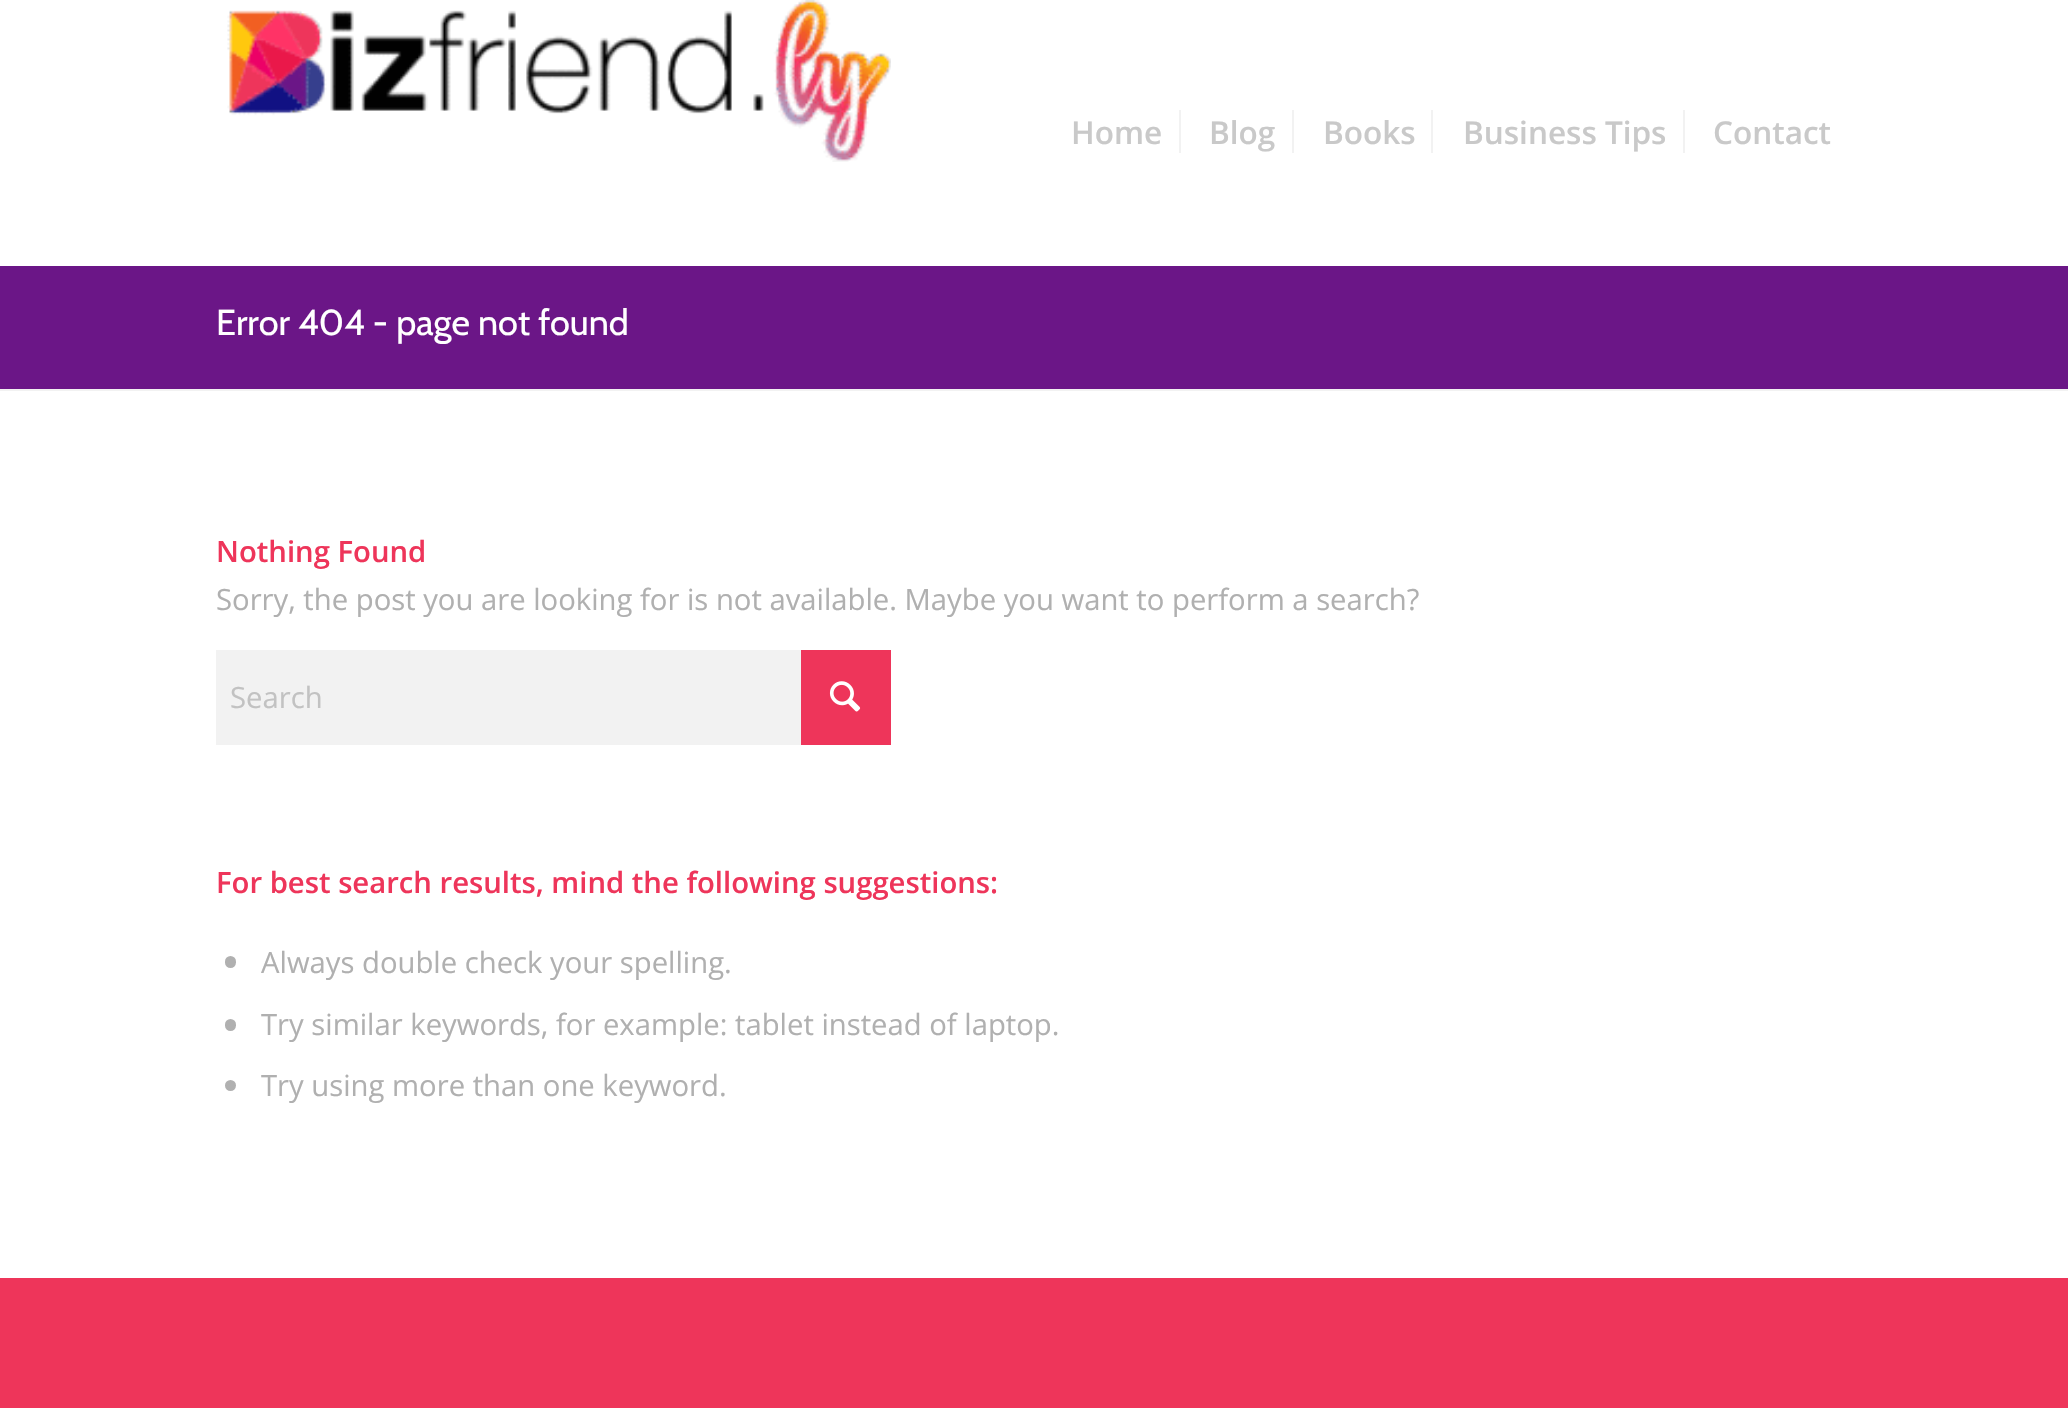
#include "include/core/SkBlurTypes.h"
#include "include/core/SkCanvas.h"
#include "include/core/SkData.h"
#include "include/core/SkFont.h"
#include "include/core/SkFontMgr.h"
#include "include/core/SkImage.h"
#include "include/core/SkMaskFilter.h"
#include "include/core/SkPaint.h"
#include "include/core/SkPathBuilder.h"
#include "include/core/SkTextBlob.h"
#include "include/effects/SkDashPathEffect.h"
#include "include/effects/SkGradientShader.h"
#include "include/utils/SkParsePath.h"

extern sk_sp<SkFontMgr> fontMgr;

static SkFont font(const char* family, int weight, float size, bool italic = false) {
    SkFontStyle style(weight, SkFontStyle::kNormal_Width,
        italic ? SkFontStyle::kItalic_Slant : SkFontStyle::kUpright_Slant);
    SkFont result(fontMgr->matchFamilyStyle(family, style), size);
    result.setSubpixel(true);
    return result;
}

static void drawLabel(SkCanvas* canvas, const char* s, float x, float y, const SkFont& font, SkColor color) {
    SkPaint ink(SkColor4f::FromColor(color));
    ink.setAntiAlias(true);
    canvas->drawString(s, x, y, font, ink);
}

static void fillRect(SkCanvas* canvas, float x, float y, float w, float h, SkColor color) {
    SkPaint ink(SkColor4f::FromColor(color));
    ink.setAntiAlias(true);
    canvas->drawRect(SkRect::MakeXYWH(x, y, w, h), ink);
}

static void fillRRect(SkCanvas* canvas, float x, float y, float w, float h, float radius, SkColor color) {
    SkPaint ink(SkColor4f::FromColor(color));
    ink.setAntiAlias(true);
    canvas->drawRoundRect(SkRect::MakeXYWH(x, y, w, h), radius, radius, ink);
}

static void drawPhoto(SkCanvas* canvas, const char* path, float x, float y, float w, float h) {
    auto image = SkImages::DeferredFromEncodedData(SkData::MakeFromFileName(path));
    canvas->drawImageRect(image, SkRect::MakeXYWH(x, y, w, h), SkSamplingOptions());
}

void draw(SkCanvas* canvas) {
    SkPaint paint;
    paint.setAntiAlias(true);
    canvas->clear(0xFFFFFFFF);
    drawPhoto(canvas, "assets/img1.png", 227, 0, 664, 162);
    SkFont font1 = font("Open Sans", 600, 31.5f);
    drawLabel(canvas, "Home", 1071, 144, font1, 0xFFC9C9C9);
    drawLabel(canvas, "Blog", 1209, 144, font1, 0xFFC9C9C9);
    fillRect(canvas, 1179, 110, 2, 43, 0xFFF2F2F2);
    drawLabel(canvas, "Books", 1323, 144, font1, 0xFFC9C9C9);
    fillRect(canvas, 1292, 110, 2, 43, 0xFFF2F2F2);
    drawLabel(canvas, "Business Tips", 1463, 144, font1, 0xFFC9C9C9);
    fillRect(canvas, 1431, 110, 2, 43, 0xFFF2F2F2);
    drawLabel(canvas, "Contact", 1713, 144, font1, 0xFFC9C9C9);
    fillRect(canvas, 1683, 110, 2, 43, 0xFFF2F2F2);
    fillRect(canvas, 0, 266, 2068, 123, 0xFF6B1687);
    SkFont font2 = font("Cabin", 400, 36);
    drawLabel(canvas, "Error 404 - page not found", 216, 335, font2, 0xFFFFFFFF);
    fillRect(canvas, 0, 389, 2068, 2, 0xFFF2F2F2);
    SkFont font3 = font("Open Sans", 600, 29.25f);
    drawLabel(canvas, "Nothing Found", 216, 562, font3, 0xFFEE355A);
    SkFont font4 = font("Open Sans", 400, 29.25f);
    drawLabel(canvas, "Sorry, the post you are looking for is not available. Maybe you want to perform a search?", 216, 610, font4, 0xFFB0B0B0);
    fillRect(canvas, 801, 650, 90, 95, 0xFFEE355A);
    fillRect(canvas, 216, 650, 585, 95, 0xFFF2F2F2);
    drawLabel(canvas, "Search", 230, 708, font4, 0xFFC2C2C2);
    drawPhoto(canvas, "assets/img2.png", 829, 681, 32, 31);
    drawLabel(canvas, "For best search results, mind the following suggestions:", 216, 893, font3, 0xFFEE355A);
    fillRRect(canvas, 225, 956, 11, 12, 5.5f, 0xFFB0B0B0);
    drawLabel(canvas, "Always double check your spelling.", 261, 973, font4, 0xFFB0B0B0);
    fillRRect(canvas, 225, 1019, 11, 12, 5.5f, 0xFFB0B0B0);
    drawLabel(canvas, "Try similar keywords, for example: tablet instead of laptop.", 261, 1035, font4, 0xFFB0B0B0);
    paint.setColor(0xFFB0B0B0);
    canvas->drawCircle(230.5f, 1085.5f, 5.5f, paint);
    drawLabel(canvas, "Try using more than one keyword.", 261, 1096, font4, 0xFFB0B0B0);
    fillRect(canvas, 0, 1278, 2068, 130, 0xFFEE355A);
}
